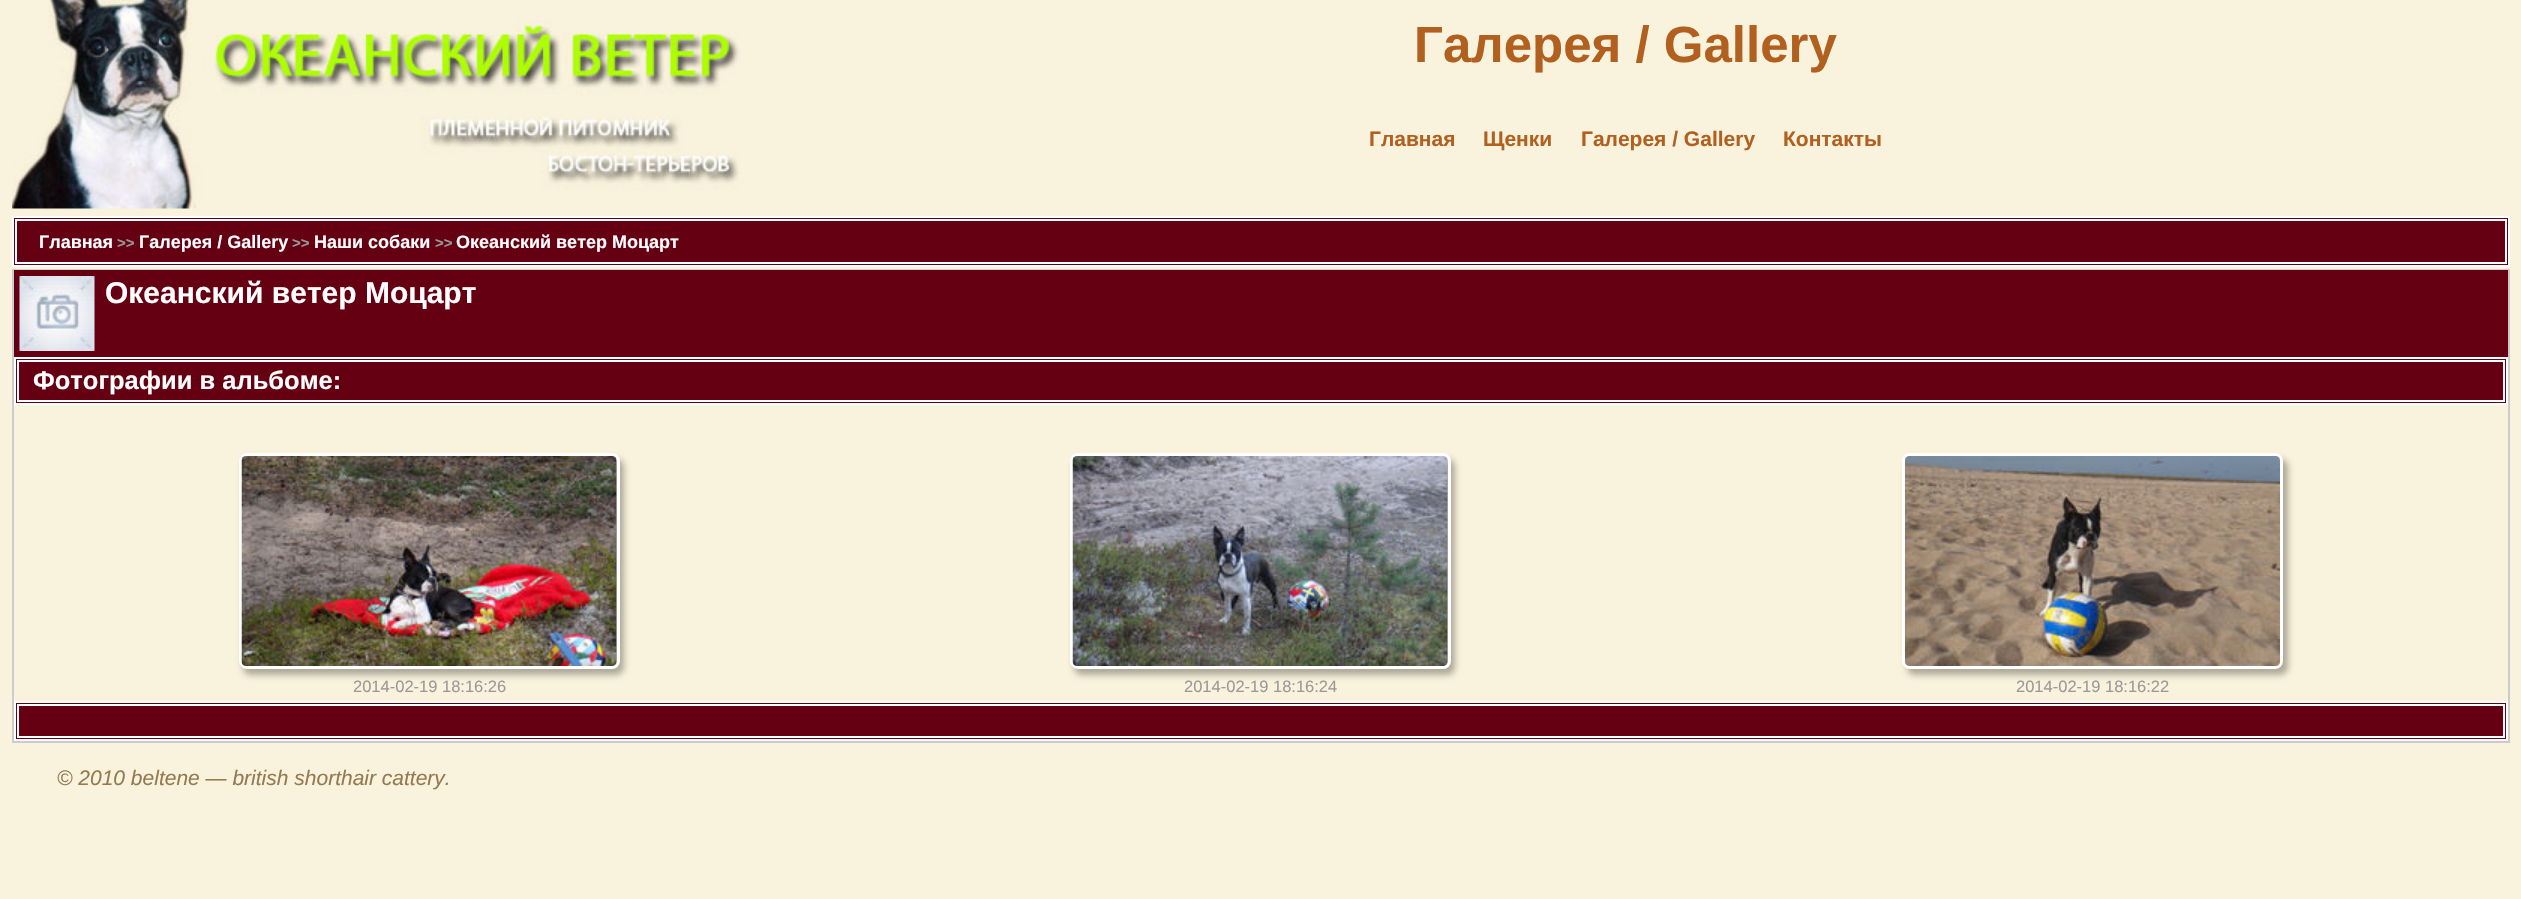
#include "include/core/SkBlurTypes.h"
#include "include/core/SkCanvas.h"
#include "include/core/SkData.h"
#include "include/core/SkFont.h"
#include "include/core/SkFontMgr.h"
#include "include/core/SkImage.h"
#include "include/core/SkMaskFilter.h"
#include "include/core/SkPaint.h"
#include "include/core/SkPathBuilder.h"
#include "include/core/SkTextBlob.h"
#include "include/effects/SkDashPathEffect.h"
#include "include/effects/SkGradientShader.h"
#include "include/utils/SkParsePath.h"

extern sk_sp<SkFontMgr> fontMgr;

static SkFont font(const char* family, int weight, float size, bool italic = false) {
    SkFontStyle style(weight, SkFontStyle::kNormal_Width,
        italic ? SkFontStyle::kItalic_Slant : SkFontStyle::kUpright_Slant);
    SkFont result(fontMgr->matchFamilyStyle(family, style), size);
    result.setSubpixel(true);
    return result;
}

static void drawLabel(SkCanvas* canvas, const char* s, float x, float y, const SkFont& font, SkColor color) {
    SkPaint ink(SkColor4f::FromColor(color));
    ink.setAntiAlias(true);
    canvas->drawString(s, x, y, font, ink);
}

static void fillRect(SkCanvas* canvas, float x, float y, float w, float h, SkColor color) {
    SkPaint ink(SkColor4f::FromColor(color));
    ink.setAntiAlias(true);
    canvas->drawRect(SkRect::MakeXYWH(x, y, w, h), ink);
}

static void drawPhoto(SkCanvas* canvas, const char* path, float x, float y, float w, float h) {
    auto image = SkImages::DeferredFromEncodedData(SkData::MakeFromFileName(path));
    canvas->drawImageRect(image, SkRect::MakeXYWH(x, y, w, h), SkSamplingOptions());
}

void draw(SkCanvas* canvas) {
    SkPaint paint;
    paint.setAntiAlias(true);
    canvas->clear(0xFFF9F2DC);
    drawPhoto(canvas, "assets/img1.png", 12, 0, 729, 209);
    SkFont font1 = font("Liberation Sans", 700, 51);
    drawLabel(canvas, "Галерея / Gallery", 1414, 62, font1, 0xFFB1601F);
    SkFont font2 = font("Liberation Sans", 700, 21);
    drawLabel(canvas, "Главная", 1369, 146, font2, 0xFFB1601F);
    drawLabel(canvas, "Щенки", 1483, 146, font2, 0xFFB1601F);
    drawLabel(canvas, "Галерея / Gallery", 1581, 146, font2, 0xFFB1601F);
    drawLabel(canvas, "Контакты", 1783, 146, font2, 0xFFB1601F);
    paint.setColor(0xFF650012);
    canvas->drawRect(SkRect::MakeXYWH(13, 217, 2496, 49), paint);
    paint.setStroke(true);
    paint.setStrokeWidth(2);
    paint.setColor(0xFFFFFFFF);
    canvas->drawRect(SkRect::MakeXYWH(13, 217, 2496, 49), paint);
    canvas->drawRect(SkRect::MakeXYWH(16, 220, 2490, 43), paint);
    SkFont font3 = font("Liberation Sans", 700, 18);
    drawLabel(canvas, "Главная", 39, 248, font3, 0xFFFFFFFF);
    SkFont font4 = font("Liberation Sans", 700, 15);
    drawLabel(canvas, ">>", 117, 248, font4, 0xFF999999);
    drawLabel(canvas, "Галерея / Gallery", 139, 248, font3, 0xFFFFFFFF);
    drawLabel(canvas, ">>", 292, 248, font4, 0xFF999999);
    drawLabel(canvas, "Наши собаки", 314, 248, font3, 0xFFFFFFFF);
    drawLabel(canvas, ">>", 435, 248, font4, 0xFF999999);
    drawLabel(canvas, "Океанский ветер Моцарт", 456, 248, font3, 0xFFFFFFFF);
    paint.setColor(0xFFCCCCCC);
    canvas->drawRect(SkRect::MakeXYWH(13, 270, 2496, 472), paint);
    fillRect(canvas, 14, 270, 2494, 87, 0xFF650012);
    drawPhoto(canvas, "assets/img2.png", 19, 276, 76, 75);
    SkFont font5 = font("Liberation Sans", 700, 30);
    drawLabel(canvas, "Океанский ветер Моцарт", 105, 303, font5, 0xFFFFFFFF);
    paint.setStroke(false);
    paint.setColor(0xFF650012);
    canvas->drawRect(SkRect::MakeXYWH(15, 358, 2492, 46), paint);
    paint.setStroke(true);
    paint.setColor(0xFFFFFFFF);
    canvas->drawRect(SkRect::MakeXYWH(15, 358, 2492, 46), paint);
    canvas->drawRect(SkRect::MakeXYWH(18, 361, 2486, 40), paint);
    SkFont font6 = font("Liberation Sans", 700, 25.5f);
    drawLabel(canvas, "Фотографии в альбоме:", 33, 389, font6, 0xFFFFFFFF);
    paint.setStroke(false);
    paint.setColor(0x4D000000);
    paint.setMaskFilter(SkMaskFilter::MakeBlur(kNormal_SkBlurStyle, 3));
    canvas->drawRoundRect(SkRect::MakeXYWH(243, 459, 381, 216), 8, 8, paint);
    paint.setMaskFilter(nullptr);
    paint.setStroke(true);
    paint.setStrokeWidth(3);
    paint.setColor(0xFFFFFFFF);
    canvas->drawRoundRect(SkRect::MakeXYWH(240.5f, 454.5f, 378, 213), 6.5f, 6.5f, paint);
    drawPhoto(canvas, "assets/img3.png", 241, 456, 376, 210);
    SkFont font7 = font("Liberation Sans", 400, 16.5f);
    drawLabel(canvas, "2014-02-19 18:16:26", 353, 692, font7, 0xFF999999);
    paint.setStroke(false);
    paint.setColor(0x4D000000);
    paint.setMaskFilter(SkMaskFilter::MakeBlur(kNormal_SkBlurStyle, 3));
    canvas->drawRoundRect(SkRect::MakeXYWH(1074, 459, 381, 216), 8, 8, paint);
    paint.setMaskFilter(nullptr);
    paint.setStroke(true);
    paint.setColor(0xFFFFFFFF);
    canvas->drawRoundRect(SkRect::MakeXYWH(1071.5f, 454.5f, 378, 213), 6.5f, 6.5f, paint);
    drawPhoto(canvas, "assets/img4.png", 1072, 456, 376, 210);
    drawLabel(canvas, "2014-02-19 18:16:24", 1184, 692, font7, 0xFF999999);
    paint.setStroke(false);
    paint.setColor(0x4D000000);
    paint.setMaskFilter(SkMaskFilter::MakeBlur(kNormal_SkBlurStyle, 3));
    canvas->drawRoundRect(SkRect::MakeXYWH(1907, 459, 381, 216), 8, 8, paint);
    paint.setMaskFilter(nullptr);
    paint.setStroke(true);
    paint.setColor(0xFFFFFFFF);
    canvas->drawRoundRect(SkRect::MakeXYWH(1903.5f, 454.5f, 378, 213), 6.5f, 6.5f, paint);
    drawPhoto(canvas, "assets/img5.png", 1905, 456, 375, 210);
    drawLabel(canvas, "2014-02-19 18:16:22", 2016, 692, font7, 0xFF999999);
    paint.setStroke(false);
    paint.setColor(0xFF650012);
    canvas->drawRect(SkRect::MakeXYWH(15, 702, 2492, 38), paint);
    paint.setStroke(true);
    paint.setStrokeWidth(2);
    paint.setColor(0xFFFFFFFF);
    canvas->drawRect(SkRect::MakeXYWH(15, 702, 2492, 38), paint);
    canvas->drawRect(SkRect::MakeXYWH(18, 705, 2486, 32), paint);
    SkFont font8 = font("Liberation Sans", 400, 21, true);
    drawLabel(canvas, "© 2010 beltene — british shorthair cattery.", 57, 785, font8, 0xFF947A50);
}
